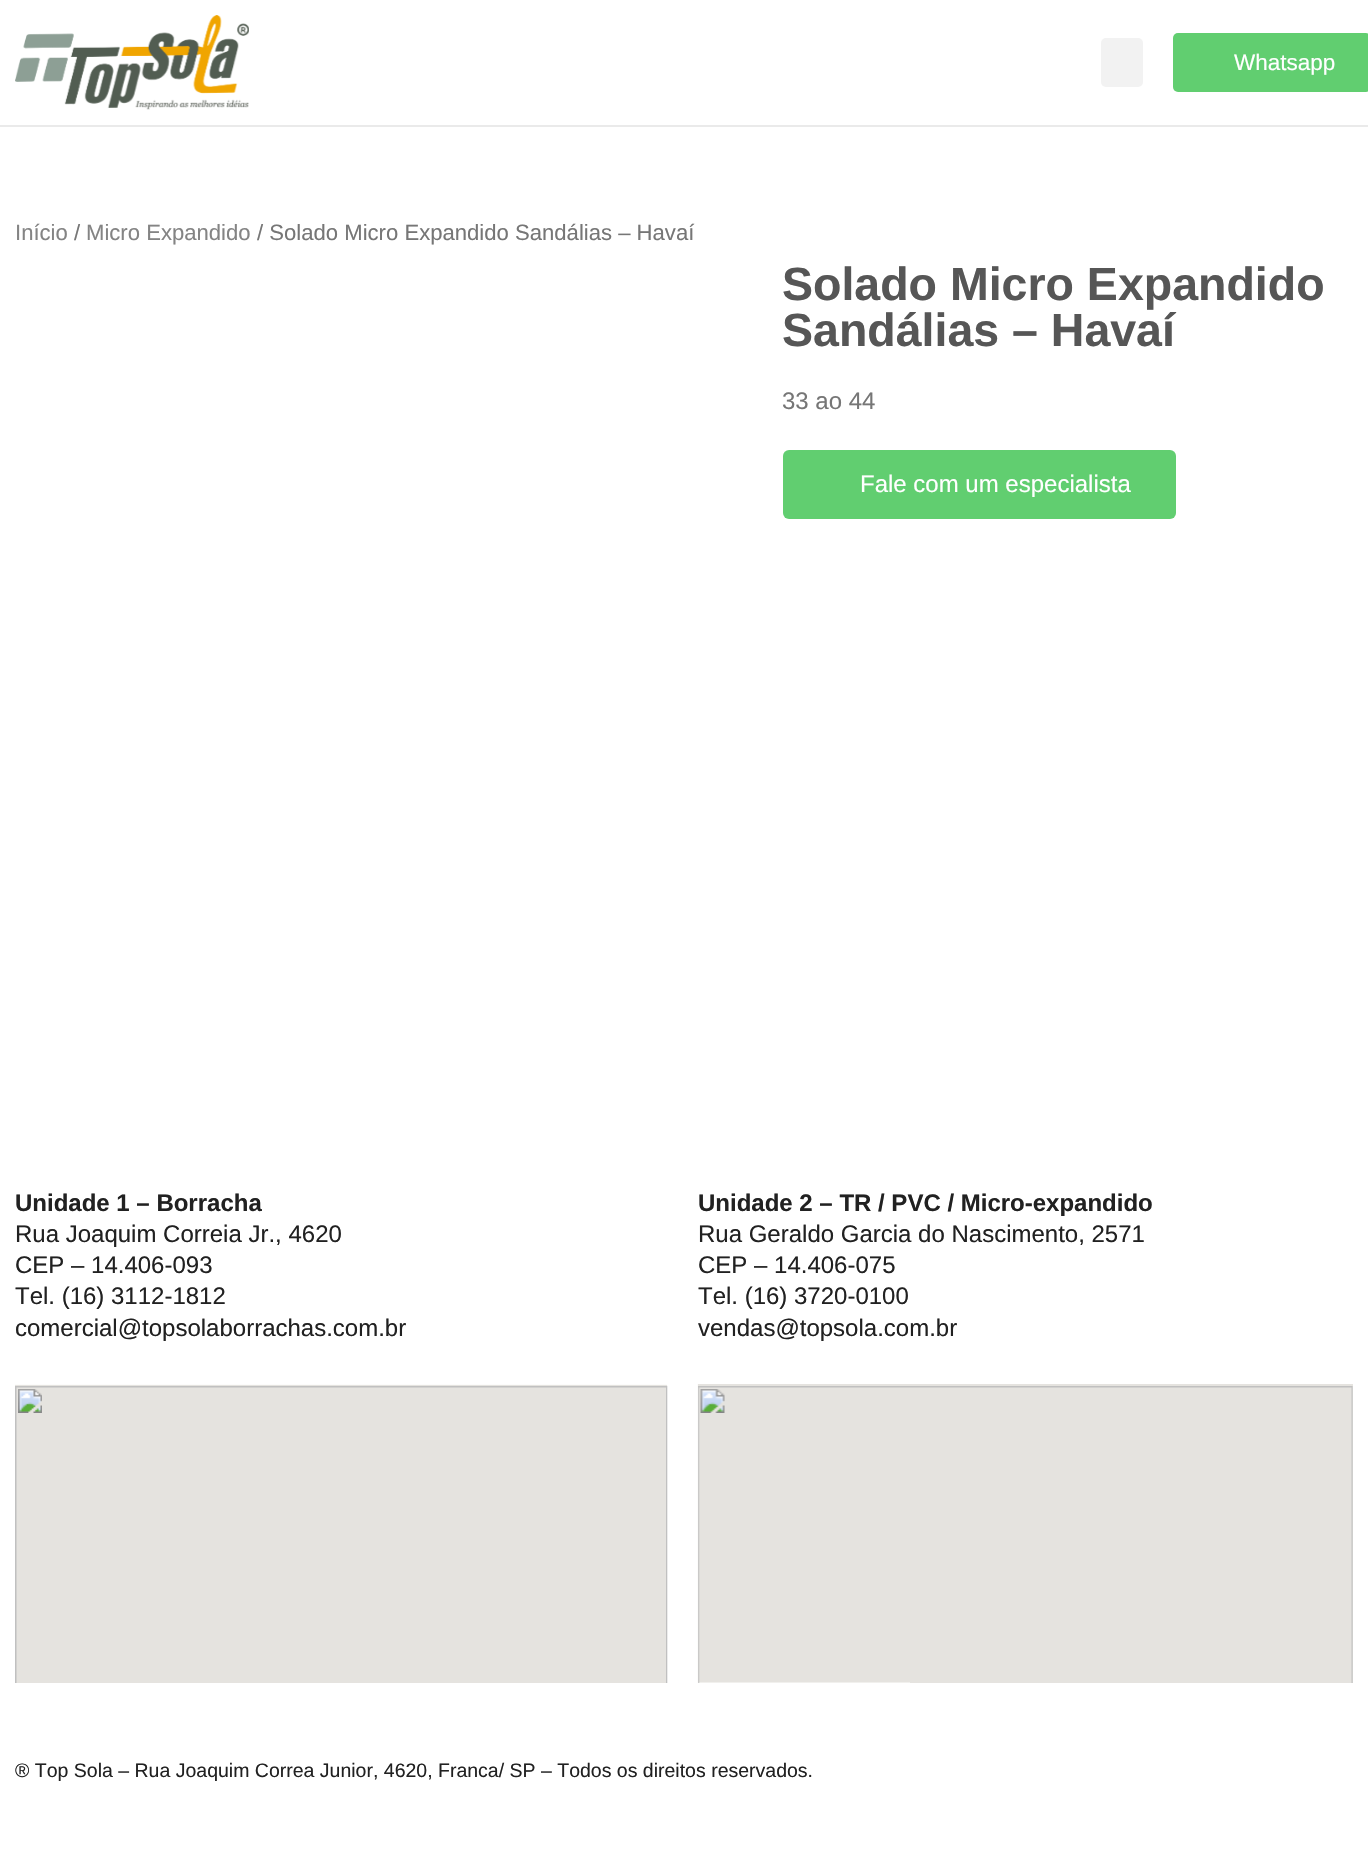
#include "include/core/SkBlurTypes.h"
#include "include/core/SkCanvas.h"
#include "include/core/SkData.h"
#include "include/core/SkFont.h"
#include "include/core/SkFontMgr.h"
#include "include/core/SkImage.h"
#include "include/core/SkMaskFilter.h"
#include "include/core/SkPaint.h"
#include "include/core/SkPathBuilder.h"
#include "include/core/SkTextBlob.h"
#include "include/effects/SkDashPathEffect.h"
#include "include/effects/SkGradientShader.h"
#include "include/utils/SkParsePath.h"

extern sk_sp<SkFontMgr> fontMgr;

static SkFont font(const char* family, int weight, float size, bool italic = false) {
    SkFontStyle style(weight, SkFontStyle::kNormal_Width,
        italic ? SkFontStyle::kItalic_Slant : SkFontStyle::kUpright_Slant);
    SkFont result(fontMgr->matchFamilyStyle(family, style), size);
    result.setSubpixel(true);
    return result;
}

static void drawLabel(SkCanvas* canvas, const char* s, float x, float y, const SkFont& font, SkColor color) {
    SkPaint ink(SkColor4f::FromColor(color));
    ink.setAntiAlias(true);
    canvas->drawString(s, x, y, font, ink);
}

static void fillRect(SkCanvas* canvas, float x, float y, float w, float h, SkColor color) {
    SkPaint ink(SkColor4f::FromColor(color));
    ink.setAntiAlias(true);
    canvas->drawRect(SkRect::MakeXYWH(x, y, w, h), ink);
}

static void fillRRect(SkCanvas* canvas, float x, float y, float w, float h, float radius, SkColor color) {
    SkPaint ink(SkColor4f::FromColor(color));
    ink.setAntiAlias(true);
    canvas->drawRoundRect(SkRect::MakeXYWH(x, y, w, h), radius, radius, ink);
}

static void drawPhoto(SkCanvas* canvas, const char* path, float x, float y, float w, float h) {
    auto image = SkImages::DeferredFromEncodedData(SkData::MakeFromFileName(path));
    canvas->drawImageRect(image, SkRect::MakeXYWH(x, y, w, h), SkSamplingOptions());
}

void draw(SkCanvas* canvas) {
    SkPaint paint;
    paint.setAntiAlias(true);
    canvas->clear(0xFFFFFFFF);
    fillRect(canvas, 0, 125, 1368, 2, 0xFFEAEAEA);
    drawPhoto(canvas, "assets/img1.png", 15, 15, 234, 95);
    fillRRect(canvas, 1101, 38, 42, 49, 5, 0xFFF2F2F2);
    fillRRect(canvas, 1173, 33, 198, 59, 5, 0xFF61CE70);
    SkFont font1 = font("Liberation Sans", 400, 22.5f);
    drawLabel(canvas, "Whatsapp", 1234, 70, font1, 0xFFFFFFFF);
    SkFont font2 = font("Liberation Sans", 400, 22.1f);
    drawLabel(canvas, "Início", 15, 240, font2, 0xFF848484);
    drawLabel(canvas, "/", 74, 240, font2, 0xFF767676);
    drawLabel(canvas, "Micro Expandido", 86, 240, font2, 0xFF848484);
    drawLabel(canvas, "/ Solado Micro Expandido Sandálias – Havaí", 257, 240, font2, 0xFF767676);
    SkFont font3 = font("Liberation Sans", 700, 46.5f);
    drawLabel(canvas, "Solado Micro Expandido", 782, 300, font3, 0xFF565656);
    drawLabel(canvas, "Sandálias – Havaí", 782, 346, font3, 0xFF565656);
    SkFont font4 = font("Liberation Sans", 400, 24);
    drawLabel(canvas, "33 ao 44", 782, 409, font4, 0xFF767676);
    fillRRect(canvas, 783, 450, 393, 69, 6, 0xFF61CE70);
    drawLabel(canvas, "Fale com um especialista", 860, 492, font4, 0xFFFFFFFF);
    SkFont font5 = font("Liberation Sans", 700, 24);
    drawLabel(canvas, "Unidade 1 – Borracha", 15, 1211, font5, 0xFF212121);
    drawLabel(canvas, "Rua Joaquim Correia Jr., 4620", 15, 1242, font4, 0xFF212121);
    drawLabel(canvas, "CEP – 14.406-093", 15, 1273, font4, 0xFF212121);
    drawLabel(canvas, "Tel. (16) 3112-1812", 15, 1304, font4, 0xFF212121);
    drawLabel(canvas, "comercial@topsolaborrachas.com.br", 15, 1336, font4, 0xFF212121);
    drawPhoto(canvas, "assets/img2.png", 15, 1384, 653, 299);
    drawLabel(canvas, "Unidade 2 – TR / PVC / Micro-expandido", 698, 1211, font5, 0xFF212121);
    drawLabel(canvas, "Rua Geraldo Garcia do Nascimento, 2571", 698, 1242, font4, 0xFF212121);
    drawLabel(canvas, "CEP – 14.406-075", 698, 1273, font4, 0xFF212121);
    drawLabel(canvas, "Tel. (16) 3720-0100", 698, 1304, font4, 0xFF212121);
    drawLabel(canvas, "vendas@topsola.com.br", 698, 1336, font4, 0xFF212121);
    drawPhoto(canvas, "assets/img3.png", 697, 1384, 656, 299);
    SkFont font6 = font("Liberation Sans", 400, 19.5f);
    drawLabel(canvas, "® Top Sola – Rua Joaquim Correa Junior, 4620, Franca/ SP – Todos os direitos reservados.", 15, 1777, font6, 0xFF212121);
}
